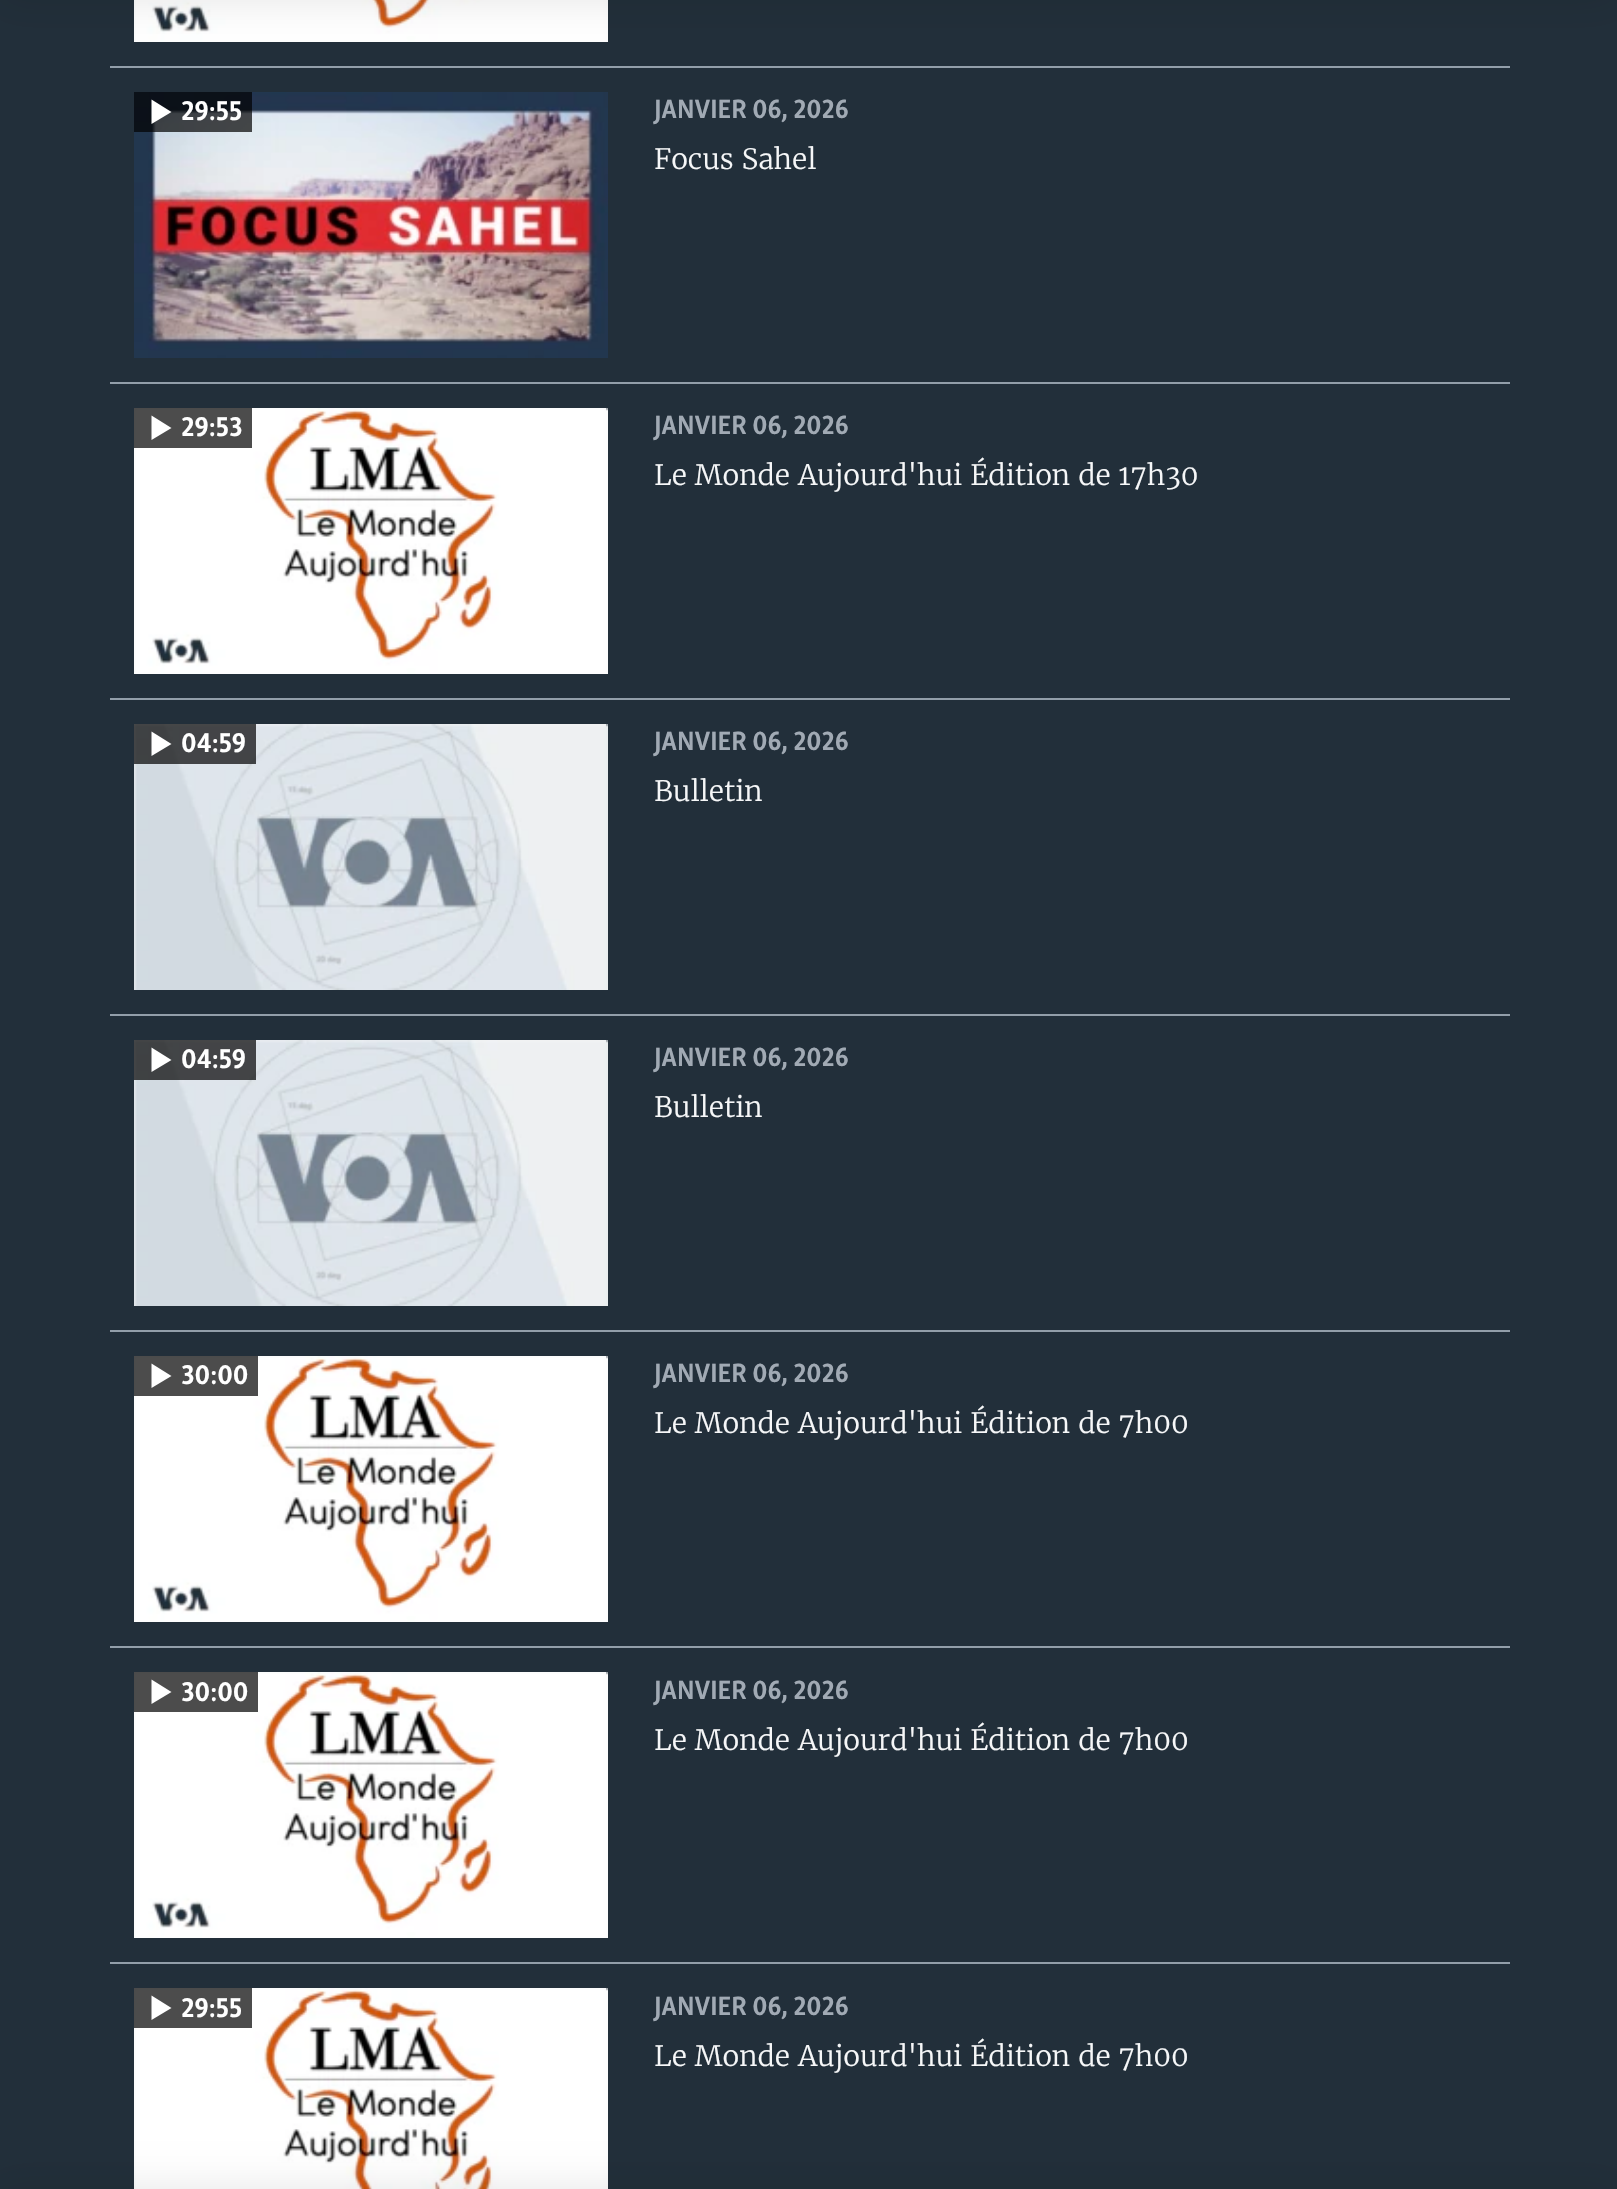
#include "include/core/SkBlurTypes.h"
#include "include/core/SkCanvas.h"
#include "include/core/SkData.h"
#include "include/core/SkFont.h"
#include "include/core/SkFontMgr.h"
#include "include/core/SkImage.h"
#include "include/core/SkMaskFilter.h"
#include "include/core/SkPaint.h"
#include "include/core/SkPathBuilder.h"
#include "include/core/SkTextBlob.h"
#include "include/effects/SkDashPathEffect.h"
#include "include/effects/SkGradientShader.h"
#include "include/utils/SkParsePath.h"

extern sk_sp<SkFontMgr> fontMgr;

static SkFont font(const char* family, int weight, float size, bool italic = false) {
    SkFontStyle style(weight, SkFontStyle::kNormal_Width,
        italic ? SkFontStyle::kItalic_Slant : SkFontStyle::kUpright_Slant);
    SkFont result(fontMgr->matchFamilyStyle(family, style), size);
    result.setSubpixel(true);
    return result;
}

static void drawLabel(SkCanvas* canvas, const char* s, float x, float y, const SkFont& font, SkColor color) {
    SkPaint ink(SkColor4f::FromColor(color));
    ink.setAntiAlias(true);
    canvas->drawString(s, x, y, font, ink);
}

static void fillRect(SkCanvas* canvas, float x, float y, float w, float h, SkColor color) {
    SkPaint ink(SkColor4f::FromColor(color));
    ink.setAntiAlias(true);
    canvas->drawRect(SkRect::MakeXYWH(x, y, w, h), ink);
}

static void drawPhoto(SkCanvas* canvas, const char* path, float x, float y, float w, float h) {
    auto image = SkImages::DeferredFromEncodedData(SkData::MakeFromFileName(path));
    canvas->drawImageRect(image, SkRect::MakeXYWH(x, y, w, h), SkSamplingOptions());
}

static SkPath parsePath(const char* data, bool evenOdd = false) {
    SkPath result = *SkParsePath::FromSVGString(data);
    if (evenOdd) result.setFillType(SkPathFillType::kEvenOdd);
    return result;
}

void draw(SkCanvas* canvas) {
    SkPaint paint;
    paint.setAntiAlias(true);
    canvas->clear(0xFF222F3A);
    fillRect(canvas, 134, 0, 472, 42, 0xFFF6F7F8);
    drawPhoto(canvas, "assets/img1.png", 134, 0, 474, 42);
    paint.setColor(0x1A000000);
    paint.setMaskFilter(SkMaskFilter::MakeBlur(kNormal_SkBlurStyle, 20));
    canvas->drawRect(SkRect::MakeXYWH(0, -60, 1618, 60), paint);
    paint.setMaskFilter(nullptr);
    fillRect(canvas, 134, 1988, 472, 201, 0xFFF6F7F8);
    drawPhoto(canvas, "assets/img6.png", 134, 1988, 474, 201);
    paint.setMaskFilter(SkMaskFilter::MakeBlur(kNormal_SkBlurStyle, 20));
    canvas->drawRect(SkRect::MakeXYWH(0, 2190, 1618, 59), paint);
    paint.setMaskFilter(nullptr);
    fillRect(canvas, 110, 66, 1400, 2, 0xFF929EA9);
    drawPhoto(canvas, "assets/img2.png", 134, 92, 474, 266);
    fillRect(canvas, 134, 92, 118, 40, 0xB3000000);
    paint.setColor(0xFFFFFFFF);
    canvas->drawPath(parsePath("M151.5 124L171.5 112L151.5 99.5Z"), paint);
    SkFont font1 = font("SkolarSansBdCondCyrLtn", 700, 28);
    drawLabel(canvas, "29:55", 181, 120, font1, 0xFFFFFFFF);
    SkFont font2 = font("SkolarSansBdCondCyrLtn", 700, 27.25f);
    drawLabel(canvas, "JANVIER 06, 2026", 654, 118, font2, 0xFFA1AAB4);
    SkFont font3 = font("Merriweather", 300, 28);
    drawLabel(canvas, "Focus Sahel", 654, 169, font3, 0xFFF6F7F8);
    fillRect(canvas, 110, 382, 1400, 2, 0xFF929EA9);
    fillRect(canvas, 134, 408, 472, 266, 0xFFF6F7F8);
    drawPhoto(canvas, "assets/img3.png", 134, 408, 474, 266);
    fillRect(canvas, 134, 408, 118, 40, 0xB3000000);
    canvas->drawPath(parsePath("M151.5 440L171.5 428L151.5 415.5Z"), paint);
    drawLabel(canvas, "29:53", 181, 436, font1, 0xFFFFFFFF);
    drawLabel(canvas, "JANVIER 06, 2026", 654, 434, font2, 0xFFA1AAB4);
    drawLabel(canvas, "Le Monde Aujourd'hui Édition de 17h30", 654, 485, font3, 0xFFF6F7F8);
    fillRect(canvas, 110, 698, 1400, 2, 0xFF929EA9);
    fillRect(canvas, 134, 724, 472, 266, 0xFFF6F7F8);
    drawPhoto(canvas, "assets/img4.png", 134, 724, 474, 266);
    fillRect(canvas, 134, 724, 122, 40, 0xB3000000);
    canvas->drawPath(parsePath("M151.5 756L171.5 744L151.5 731.5Z"), paint);
    drawLabel(canvas, "04:59", 181, 752, font1, 0xFFFFFFFF);
    drawLabel(canvas, "JANVIER 06, 2026", 654, 750, font2, 0xFFA1AAB4);
    drawLabel(canvas, "Bulletin", 654, 801, font3, 0xFFF6F7F8);
    fillRect(canvas, 110, 1014, 1400, 2, 0xFF929EA9);
    fillRect(canvas, 134, 1040, 472, 266, 0xFFF6F7F8);
    drawPhoto(canvas, "assets/img4.png", 134, 1040, 474, 266);
    fillRect(canvas, 134, 1040, 122, 40, 0xB3000000);
    canvas->drawPath(parsePath("M151.5 1072L171.5 1060L151.5 1047.5Z"), paint);
    drawLabel(canvas, "04:59", 181, 1068, font1, 0xFFFFFFFF);
    drawLabel(canvas, "JANVIER 06, 2026", 654, 1066, font2, 0xFFA1AAB4);
    drawLabel(canvas, "Bulletin", 654, 1117, font3, 0xFFF6F7F8);
    fillRect(canvas, 110, 1330, 1400, 2, 0xFF929EA9);
    fillRect(canvas, 134, 1356, 472, 266, 0xFFF6F7F8);
    drawPhoto(canvas, "assets/img5.png", 134, 1356, 474, 266);
    fillRect(canvas, 134, 1356, 124, 40, 0xB3000000);
    canvas->drawPath(parsePath("M151.5 1388L171.5 1376L151.5 1363.5Z"), paint);
    drawLabel(canvas, "30:00", 181, 1384, font1, 0xFFFFFFFF);
    drawLabel(canvas, "JANVIER 06, 2026", 654, 1382, font2, 0xFFA1AAB4);
    drawLabel(canvas, "Le Monde Aujourd'hui Édition de 7h00", 654, 1433, font3, 0xFFF6F7F8);
    fillRect(canvas, 110, 1646, 1400, 2, 0xFF929EA9);
    fillRect(canvas, 134, 1672, 472, 266, 0xFFF6F7F8);
    drawPhoto(canvas, "assets/img3.png", 134, 1672, 474, 266);
    fillRect(canvas, 134, 1672, 124, 40, 0xB3000000);
    canvas->drawPath(parsePath("M151.5 1704L171.5 1692L151.5 1679.5Z"), paint);
    drawLabel(canvas, "30:00", 181, 1701, font1, 0xFFFFFFFF);
    drawLabel(canvas, "JANVIER 06, 2026", 654, 1699, font2, 0xFFA1AAB4);
    drawLabel(canvas, "Le Monde Aujourd'hui Édition de 7h00", 654, 1750, font3, 0xFFF6F7F8);
    fillRect(canvas, 110, 1962, 1400, 2, 0xFF929EA9);
    fillRect(canvas, 134, 1988, 118, 40, 0xB3000000);
    canvas->drawPath(parsePath("M151.5 2020L171.5 2008L151.5 1995.5Z"), paint);
    drawLabel(canvas, "29:55", 181, 2017, font1, 0xFFFFFFFF);
    drawLabel(canvas, "JANVIER 06, 2026", 654, 2015, font2, 0xFFA1AAB4);
    drawLabel(canvas, "Le Monde Aujourd'hui Édition de 7h00", 654, 2066, font3, 0xFFF6F7F8);
}
